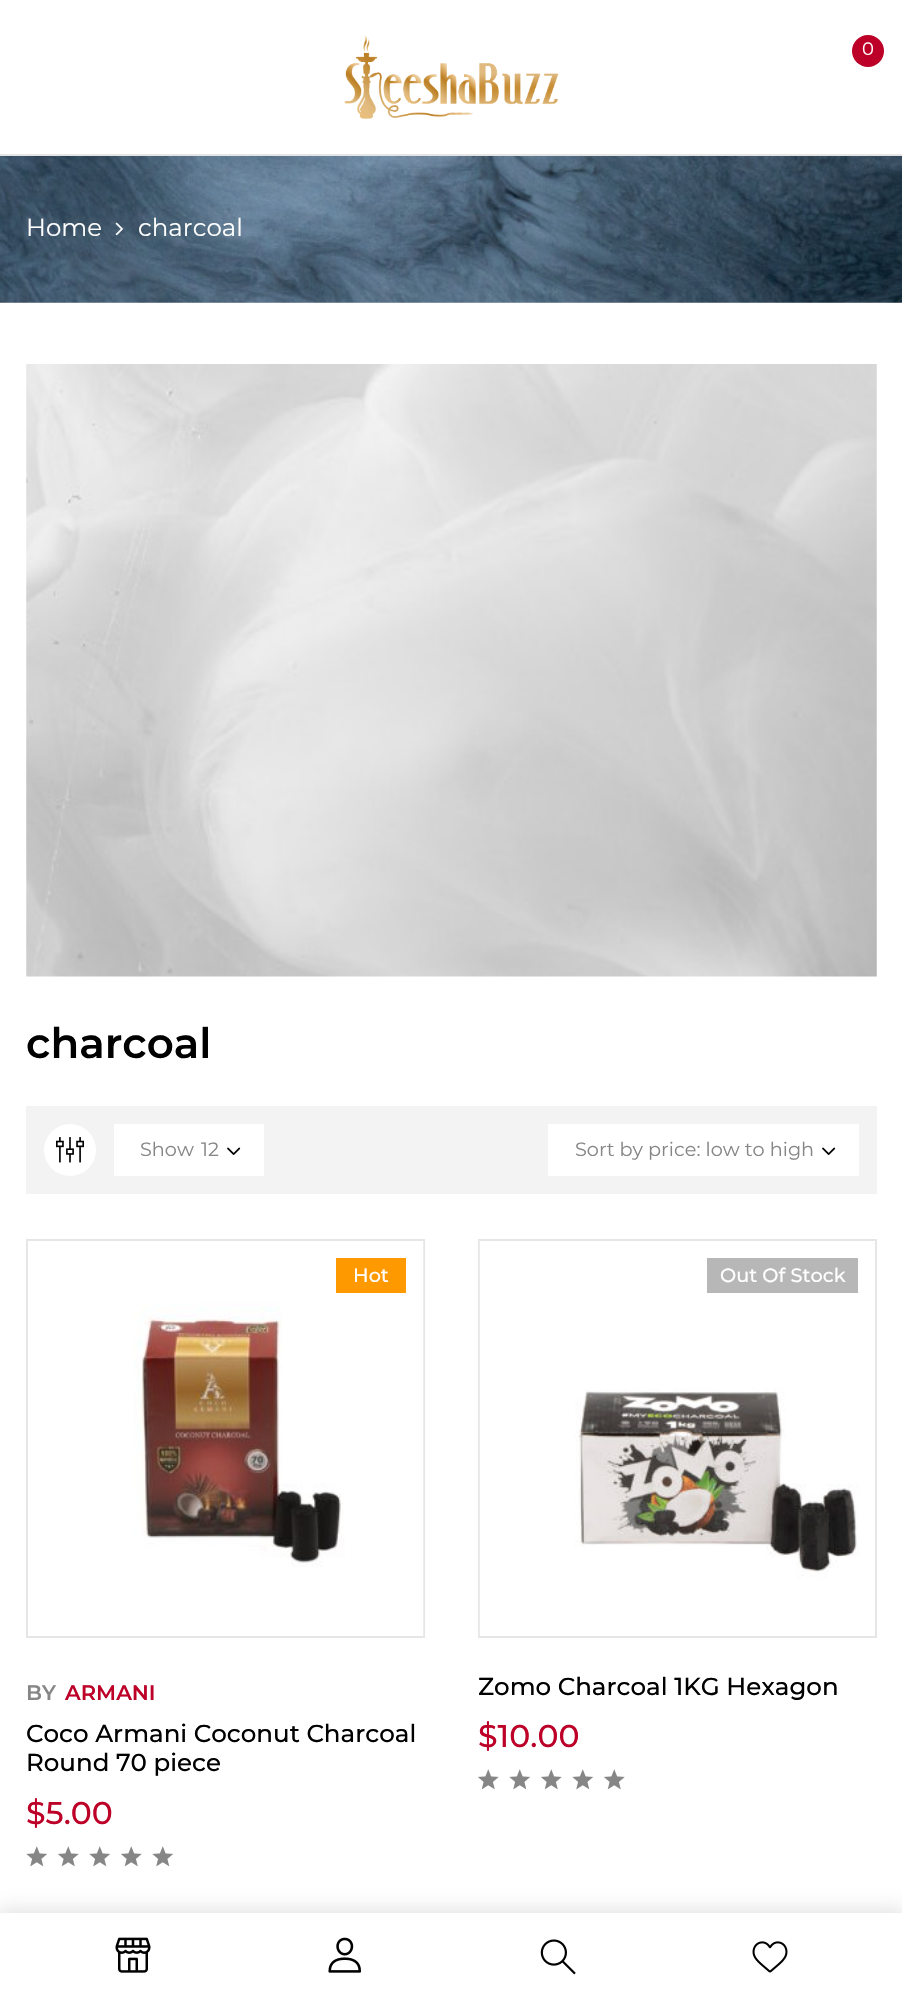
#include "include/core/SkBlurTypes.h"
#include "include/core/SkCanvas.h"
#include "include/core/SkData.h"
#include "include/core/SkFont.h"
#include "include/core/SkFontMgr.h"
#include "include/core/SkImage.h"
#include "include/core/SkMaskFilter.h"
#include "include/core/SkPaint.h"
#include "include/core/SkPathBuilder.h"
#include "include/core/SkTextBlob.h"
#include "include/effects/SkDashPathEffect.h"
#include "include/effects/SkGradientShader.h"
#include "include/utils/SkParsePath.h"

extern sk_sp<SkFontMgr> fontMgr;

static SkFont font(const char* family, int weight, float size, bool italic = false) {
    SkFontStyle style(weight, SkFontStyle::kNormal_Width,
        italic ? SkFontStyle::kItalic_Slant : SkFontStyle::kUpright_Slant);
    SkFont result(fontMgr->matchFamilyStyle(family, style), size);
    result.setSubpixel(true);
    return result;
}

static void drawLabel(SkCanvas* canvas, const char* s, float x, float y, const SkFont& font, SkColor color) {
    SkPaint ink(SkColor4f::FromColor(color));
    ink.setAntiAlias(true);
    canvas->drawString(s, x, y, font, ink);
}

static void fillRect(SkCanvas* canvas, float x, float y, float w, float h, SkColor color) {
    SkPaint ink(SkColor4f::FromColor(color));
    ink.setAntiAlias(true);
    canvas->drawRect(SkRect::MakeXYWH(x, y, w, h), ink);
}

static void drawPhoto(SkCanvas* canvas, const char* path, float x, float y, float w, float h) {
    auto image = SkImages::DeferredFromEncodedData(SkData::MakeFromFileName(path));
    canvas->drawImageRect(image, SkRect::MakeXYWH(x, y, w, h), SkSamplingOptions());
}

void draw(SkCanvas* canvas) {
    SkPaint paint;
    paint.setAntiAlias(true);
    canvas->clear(0xFFFFFFFF);
    fillRect(canvas, 0, 154, 902, 2, 0xFFE5E5E5);
    drawPhoto(canvas, "assets/img1.png", 344, 35, 215, 84);
    paint.setColor(0xFFBD0028);
    canvas->drawCircle(868, 51, 16, paint);
    SkFont font1 = font("Montserrat", 400, 18);
    drawLabel(canvas, "0", 862, 55, font1, 0xFFFFFFFF);
    paint.setColor(0x4D8F8F8F);
    paint.setMaskFilter(SkMaskFilter::MakeBlur(kNormal_SkBlurStyle, 10.5f));
    canvas->drawRect(SkRect::MakeXYWH(-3, 1911, 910, 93), paint);
    paint.setMaskFilter(nullptr);
    fillRect(canvas, 0, 1913, 902, 84, 0xFFFFFFFF);
    drawPhoto(canvas, "assets/img2.png", 115, 1937, 36, 36);
    drawPhoto(canvas, "assets/img3.png", 328, 1937, 34, 36);
    drawPhoto(canvas, "assets/img4.png", 540, 1939, 36, 36);
    drawPhoto(canvas, "assets/img5.png", 752, 1941, 36, 32);
    drawPhoto(canvas, "assets/img6.png", 0, 156, 902, 147);
    SkFont font2 = font("Montserrat", 400, 24.5f);
    drawLabel(canvas, "Home", 26, 236, font2, 0xFFFFFFFF);
    drawPhoto(canvas, "assets/img7.png", 115, 222, 8, 14);
    drawLabel(canvas, "charcoal", 138, 236, font2, 0xFFFFFFFF);
    drawPhoto(canvas, "assets/img8.png", 26, 364, 851, 613);
    SkFont font3 = font("Montserrat", 600, 42);
    drawLabel(canvas, "charcoal", 26, 1058, font3, 0xFF000000);
    fillRect(canvas, 26, 1106, 851, 88, 0xFFF3F3F3);
    paint.setColor(0xFFFFFFFF);
    canvas->drawCircle(70, 1150, 26, paint);
    drawPhoto(canvas, "assets/img9.png", 56, 1137, 28, 26);
    fillRect(canvas, 114, 1124, 150, 52, 0xFFFFFFFF);
    SkFont font4 = font("Montserrat", 400, 19.25f);
    drawLabel(canvas, "Show", 140, 1156, font4, 0xFF868686);
    drawLabel(canvas, "12", 201, 1156, font4, 0xFF868686);
    drawPhoto(canvas, "assets/img10.png", 227, 1147, 14, 8);
    fillRect(canvas, 548, 1124, 311, 52, 0xFFFFFFFF);
    drawLabel(canvas, "Sort by price: low to high", 575, 1156, font4, 0xFF868686);
    drawPhoto(canvas, "assets/img10.png", 822, 1147, 14, 8);
    paint.setStroke(true);
    paint.setStrokeWidth(2);
    paint.setColor(0xFFE6E6E6);
    canvas->drawRect(SkRect::MakeXYWH(27, 1240, 397, 397), paint);
    drawPhoto(canvas, "assets/img11.png", 133, 1241, 291, 395);
    fillRect(canvas, 336, 1258, 70, 35, 0xFFFF9900);
    SkFont font5 = font("Montserrat", 500, 19.25f);
    drawLabel(canvas, "Hot", 353, 1282, font5, 0xFFFFFFFF);
    SkFont font6 = font("Montserrat", 600, 21);
    drawLabel(canvas, "BY", 26, 1700, font6, 0xFF868686);
    drawLabel(canvas, "ARMANI", 65, 1700, font6, 0xFFBD0028);
    SkFont font7 = font("Montserrat", 500, 24.5f);
    drawLabel(canvas, "Coco Armani Coconut Charcoal", 26, 1742, font7, 0xFF000000);
    drawLabel(canvas, "Round 70 piece", 26, 1771, font7, 0xFF000000);
    SkFont font8 = font("Montserrat", 500, 31.5f);
    drawLabel(canvas, "$5.00", 26, 1824, font8, 0xFFBD0028);
    drawPhoto(canvas, "assets/img12.png", 26, 1846, 147, 21);
    canvas->drawRect(SkRect::MakeXYWH(479, 1240, 397, 397), paint);
    drawPhoto(canvas, "assets/img13.png", 479, 1241, 380, 395);
    fillRect(canvas, 707, 1258, 151, 35, 0xFFB7B7B7);
    drawLabel(canvas, "Out Of Stock", 720, 1282, font5, 0xFFFFFFFF);
    drawLabel(canvas, "Zomo Charcoal 1KG Hexagon", 478, 1695, font7, 0xFF000000);
    drawLabel(canvas, "$10.00", 478, 1747, font8, 0xFFBD0028);
    drawPhoto(canvas, "assets/img14.png", 478, 1769, 147, 21);
}
